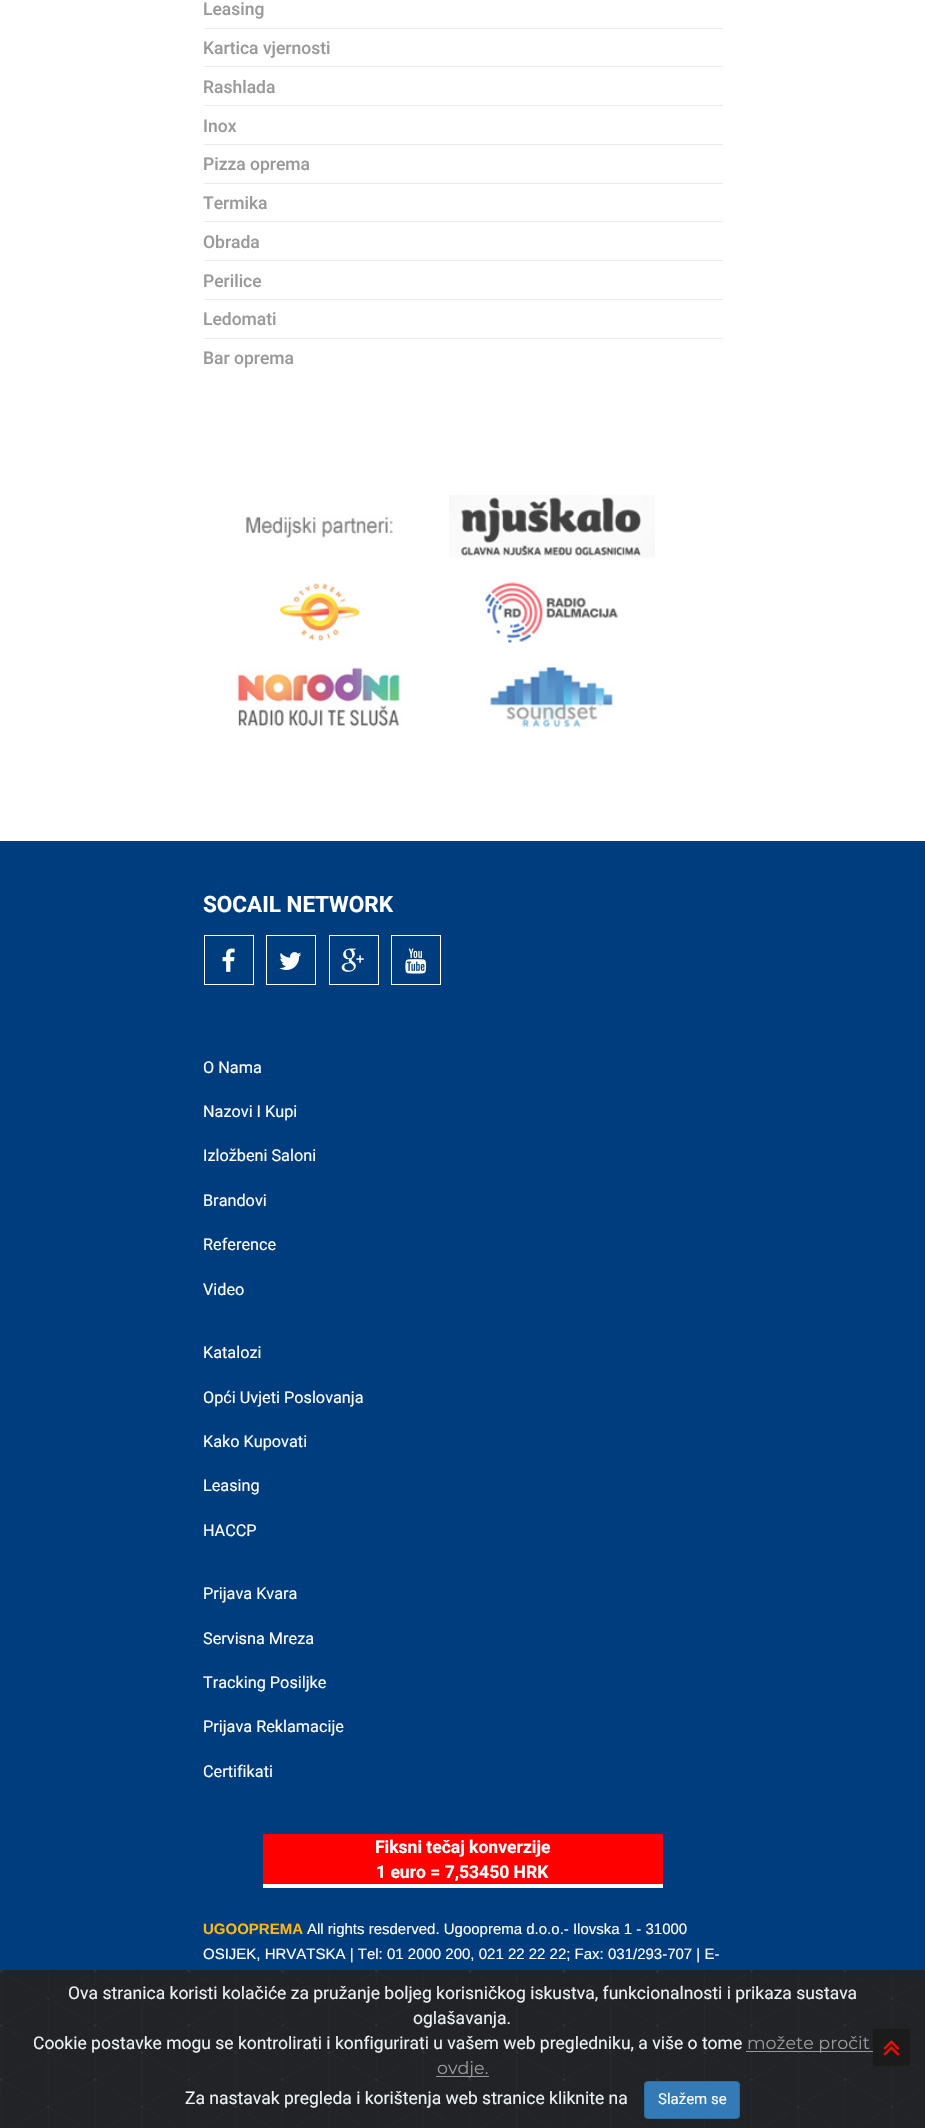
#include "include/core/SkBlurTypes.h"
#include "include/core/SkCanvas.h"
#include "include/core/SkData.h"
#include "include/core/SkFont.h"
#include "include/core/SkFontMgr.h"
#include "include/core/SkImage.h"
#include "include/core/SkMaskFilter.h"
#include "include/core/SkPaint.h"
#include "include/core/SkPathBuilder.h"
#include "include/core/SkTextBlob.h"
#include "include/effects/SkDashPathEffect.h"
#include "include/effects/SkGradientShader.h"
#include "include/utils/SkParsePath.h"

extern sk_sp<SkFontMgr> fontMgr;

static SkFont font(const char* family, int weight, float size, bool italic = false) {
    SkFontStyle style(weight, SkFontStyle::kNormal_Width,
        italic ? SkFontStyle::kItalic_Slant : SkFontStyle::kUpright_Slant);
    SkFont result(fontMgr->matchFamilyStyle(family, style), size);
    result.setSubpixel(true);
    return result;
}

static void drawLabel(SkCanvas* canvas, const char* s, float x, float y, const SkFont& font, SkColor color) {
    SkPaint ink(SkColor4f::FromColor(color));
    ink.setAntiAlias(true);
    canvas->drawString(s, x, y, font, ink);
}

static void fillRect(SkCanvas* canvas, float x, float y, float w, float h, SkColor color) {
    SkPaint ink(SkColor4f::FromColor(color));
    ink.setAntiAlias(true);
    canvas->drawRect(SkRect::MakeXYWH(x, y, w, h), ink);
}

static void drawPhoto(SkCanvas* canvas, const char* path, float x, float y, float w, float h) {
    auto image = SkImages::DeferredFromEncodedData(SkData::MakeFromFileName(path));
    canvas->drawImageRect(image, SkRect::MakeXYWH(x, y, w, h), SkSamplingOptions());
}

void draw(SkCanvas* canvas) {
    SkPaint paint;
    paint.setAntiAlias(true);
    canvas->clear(0xFFFFFFFF);
    fillRect(canvas, 204, 28, 519, 1, 0xFFEBEBEB);
    SkFont font1 = font("Roboto", 500, 17.5f);
    drawLabel(canvas, "Leasing", 203, 15, font1, 0xFF999999);
    fillRect(canvas, 204, 66, 519, 1, 0xFFEBEBEB);
    drawLabel(canvas, "Kartica vjernosti", 203, 54, font1, 0xFF999999);
    fillRect(canvas, 204, 105, 519, 1, 0xFFEBEBEB);
    drawLabel(canvas, "Rashlada", 203, 93, font1, 0xFF999999);
    fillRect(canvas, 204, 144, 519, 1, 0xFFEBEBEB);
    drawLabel(canvas, "Inox", 203, 132, font1, 0xFF999999);
    fillRect(canvas, 204, 183, 519, 1, 0xFFEBEBEB);
    drawLabel(canvas, "Pizza oprema", 203, 170, font1, 0xFF999999);
    fillRect(canvas, 204, 221, 519, 1, 0xFFEBEBEB);
    drawLabel(canvas, "Termika", 203, 209, font1, 0xFF999999);
    fillRect(canvas, 204, 260, 519, 1, 0xFFEBEBEB);
    drawLabel(canvas, "Obrada", 203, 248, font1, 0xFF999999);
    fillRect(canvas, 204, 299, 519, 1, 0xFFEBEBEB);
    drawLabel(canvas, "Perilice", 203, 287, font1, 0xFF999999);
    fillRect(canvas, 204, 338, 519, 1, 0xFFEBEBEB);
    drawLabel(canvas, "Ledomati", 203, 325, font1, 0xFF999999);
    drawLabel(canvas, "Bar oprema", 203, 364, font1, 0xFF999999);
    drawPhoto(canvas, "assets/img1.png", 246, 515, 147, 23);
    drawPhoto(canvas, "assets/img2.png", 449, 495, 206, 63);
    drawPhoto(canvas, "assets/img3.png", 279, 583, 82, 59);
    drawPhoto(canvas, "assets/img4.png", 485, 582, 133, 61);
    drawPhoto(canvas, "assets/img5.png", 237, 667, 165, 60);
    drawPhoto(canvas, "assets/img6.png", 486, 667, 129, 62);
    fillRect(canvas, 0, 841, 925, 1129, 0xFF003D7E);
    SkFont font2 = font("Roboto", 700, 22.5f);
    drawLabel(canvas, "SOCAIL NETWORK", 203, 912, font2, 0xFFFFFFFF);
    paint.setStroke(true);
    paint.setStrokeWidth(1);
    paint.setColor(0xFFFFFFFF);
    canvas->drawRect(SkRect::MakeXYWH(204.5f, 935.5f, 49, 49), paint);
    drawPhoto(canvas, "assets/img7.png", 222, 948, 13, 24);
    canvas->drawRect(SkRect::MakeXYWH(266.5f, 935.5f, 49, 49), paint);
    drawPhoto(canvas, "assets/img8.png", 279, 952, 23, 18);
    canvas->drawRect(SkRect::MakeXYWH(329.5f, 935.5f, 49, 49), paint);
    drawPhoto(canvas, "assets/img9.png", 341, 948, 23, 24);
    canvas->drawRect(SkRect::MakeXYWH(391.5f, 935.5f, 49, 49), paint);
    drawPhoto(canvas, "assets/img10.png", 405, 948, 22, 26);
    SkFont font3 = font("Roboto", 400, 16.25f);
    drawLabel(canvas, "O Nama", 203, 1073, font3, 0xFFFFFFFF);
    drawLabel(canvas, "Nazovi I Kupi", 203, 1117, font3, 0xFFFFFFFF);
    drawLabel(canvas, "Izložbeni Saloni", 203, 1161, font3, 0xFFFFFFFF);
    drawLabel(canvas, "Brandovi", 203, 1206, font3, 0xFFFFFFFF);
    drawLabel(canvas, "Reference", 203, 1250, font3, 0xFFFFFFFF);
    drawLabel(canvas, "Video", 203, 1295, font3, 0xFFFFFFFF);
    drawLabel(canvas, "Katalozi", 203, 1358, font3, 0xFFFFFFFF);
    drawLabel(canvas, "Opći Uvjeti Poslovanja", 203, 1403, font3, 0xFFFFFFFF);
    drawLabel(canvas, "Kako Kupovati", 203, 1447, font3, 0xFFFFFFFF);
    drawLabel(canvas, "Leasing", 203, 1491, font3, 0xFFFFFFFF);
    drawLabel(canvas, "HACCP", 203, 1536, font3, 0xFFFFFFFF);
    drawLabel(canvas, "Prijava Kvara", 203, 1599, font3, 0xFFFFFFFF);
    drawLabel(canvas, "Servisna Mreza", 203, 1644, font3, 0xFFFFFFFF);
    drawLabel(canvas, "Tracking Posiljke", 203, 1688, font3, 0xFFFFFFFF);
    drawLabel(canvas, "Prijava Reklamacije", 203, 1732, font3, 0xFFFFFFFF);
    drawLabel(canvas, "Certifikati", 203, 1777, font3, 0xFFFFFFFF);
    fillRect(canvas, 263, 1834, 400, 50, 0xFFFF0000);
    fillRect(canvas, 263, 1884, 400, 4, 0xFFFFFFFF);
    SkFont font4 = font("Roboto", 700, 17.5f);
    drawLabel(canvas, "Fiksni tečaj konverzije", 375, 1853, font4, 0xFFFFFFFF);
    drawLabel(canvas, "1 euro = 7,53450 HRK", 376, 1878, font4, 0xFFFFFFFF);
    SkFont font5 = font("Liberation Sans", 700, 15);
    drawLabel(canvas, "UGOOPREMA", 203, 1934, font5, 0xFFFDB813);
    SkFont font6 = font("Liberation Sans", 400, 15);
    drawLabel(canvas, "All rights resderved. Ugooprema d.o.o.- Ilovska 1 - 31000", 307, 1934, font6, 0xFFFFFFFF);
    drawLabel(canvas, "OSIJEK, HRVATSKA | Tel: 01 2000 200, 021 22 22 22; Fax: 031/293-707 | E-", 203, 1959, font6, 0xFFFFFFFF);
    fillRect(canvas, 923, 1970, 2, 158, 0xFF212327);
    drawPhoto(canvas, "assets/img11.png", 0, 1970, 923, 158);
    SkFont font7 = font("Roboto", 400, 17.5f);
    drawLabel(canvas, "Ova stranica koristi kolačiće za pružanje boljeg korisničkog iskustva, funkcionalnosti i prikaza sustava", 68, 1999, font7, 0xFFECF0F1);
    drawLabel(canvas, "oglašavanja.", 413, 2024, font7, 0xFFECF0F1);
    drawLabel(canvas, "Cookie postavke mogu se kontrolirati i konfigurirati u vašem web pregledniku, a više o tome", 33, 2049, font7, 0xFFECF0F1);
    fillRect(canvas, 746, 2051, 127, 1, 0xFF999999);
    SkFont font8 = font("Montserrat", 400, 17.5f);
    drawLabel(canvas, "možete pročit", 747, 2049, font8, 0xFF999999);
    fillRect(canvas, 436, 2076, 53, 1, 0xFF999999);
    drawLabel(canvas, "ovdje.", 437, 2074, font8, 0xFF999999);
    drawLabel(canvas, "Za nastavak pregleda i korištenja web stranice kliknite na", 185, 2104, font7, 0xFFECF0F1);
    paint.setStroke(false);
    paint.setColor(0xFF337AB7);
    canvas->drawRoundRect(SkRect::MakeXYWH(644.5f, 2081.5f, 95, 37), 3.5f, 3.5f, paint);
    paint.setStroke(true);
    paint.setColor(0xFF2E6DA4);
    canvas->drawRoundRect(SkRect::MakeXYWH(644.5f, 2081.5f, 95, 37), 3.5f, 3.5f, paint);
    SkFont font9 = font("Roboto", 400, 15);
    drawLabel(canvas, "Slažem se", 658, 2104, font9, 0xFFFFFFFF);
    fillRect(canvas, 873, 2029, 37, 37, 0xFF1B1B1B);
    drawPhoto(canvas, "assets/img12.png", 883, 2040, 16, 16);
    drawPhoto(canvas, "assets/img13.png", 883, 2040, 16, 16);
}
